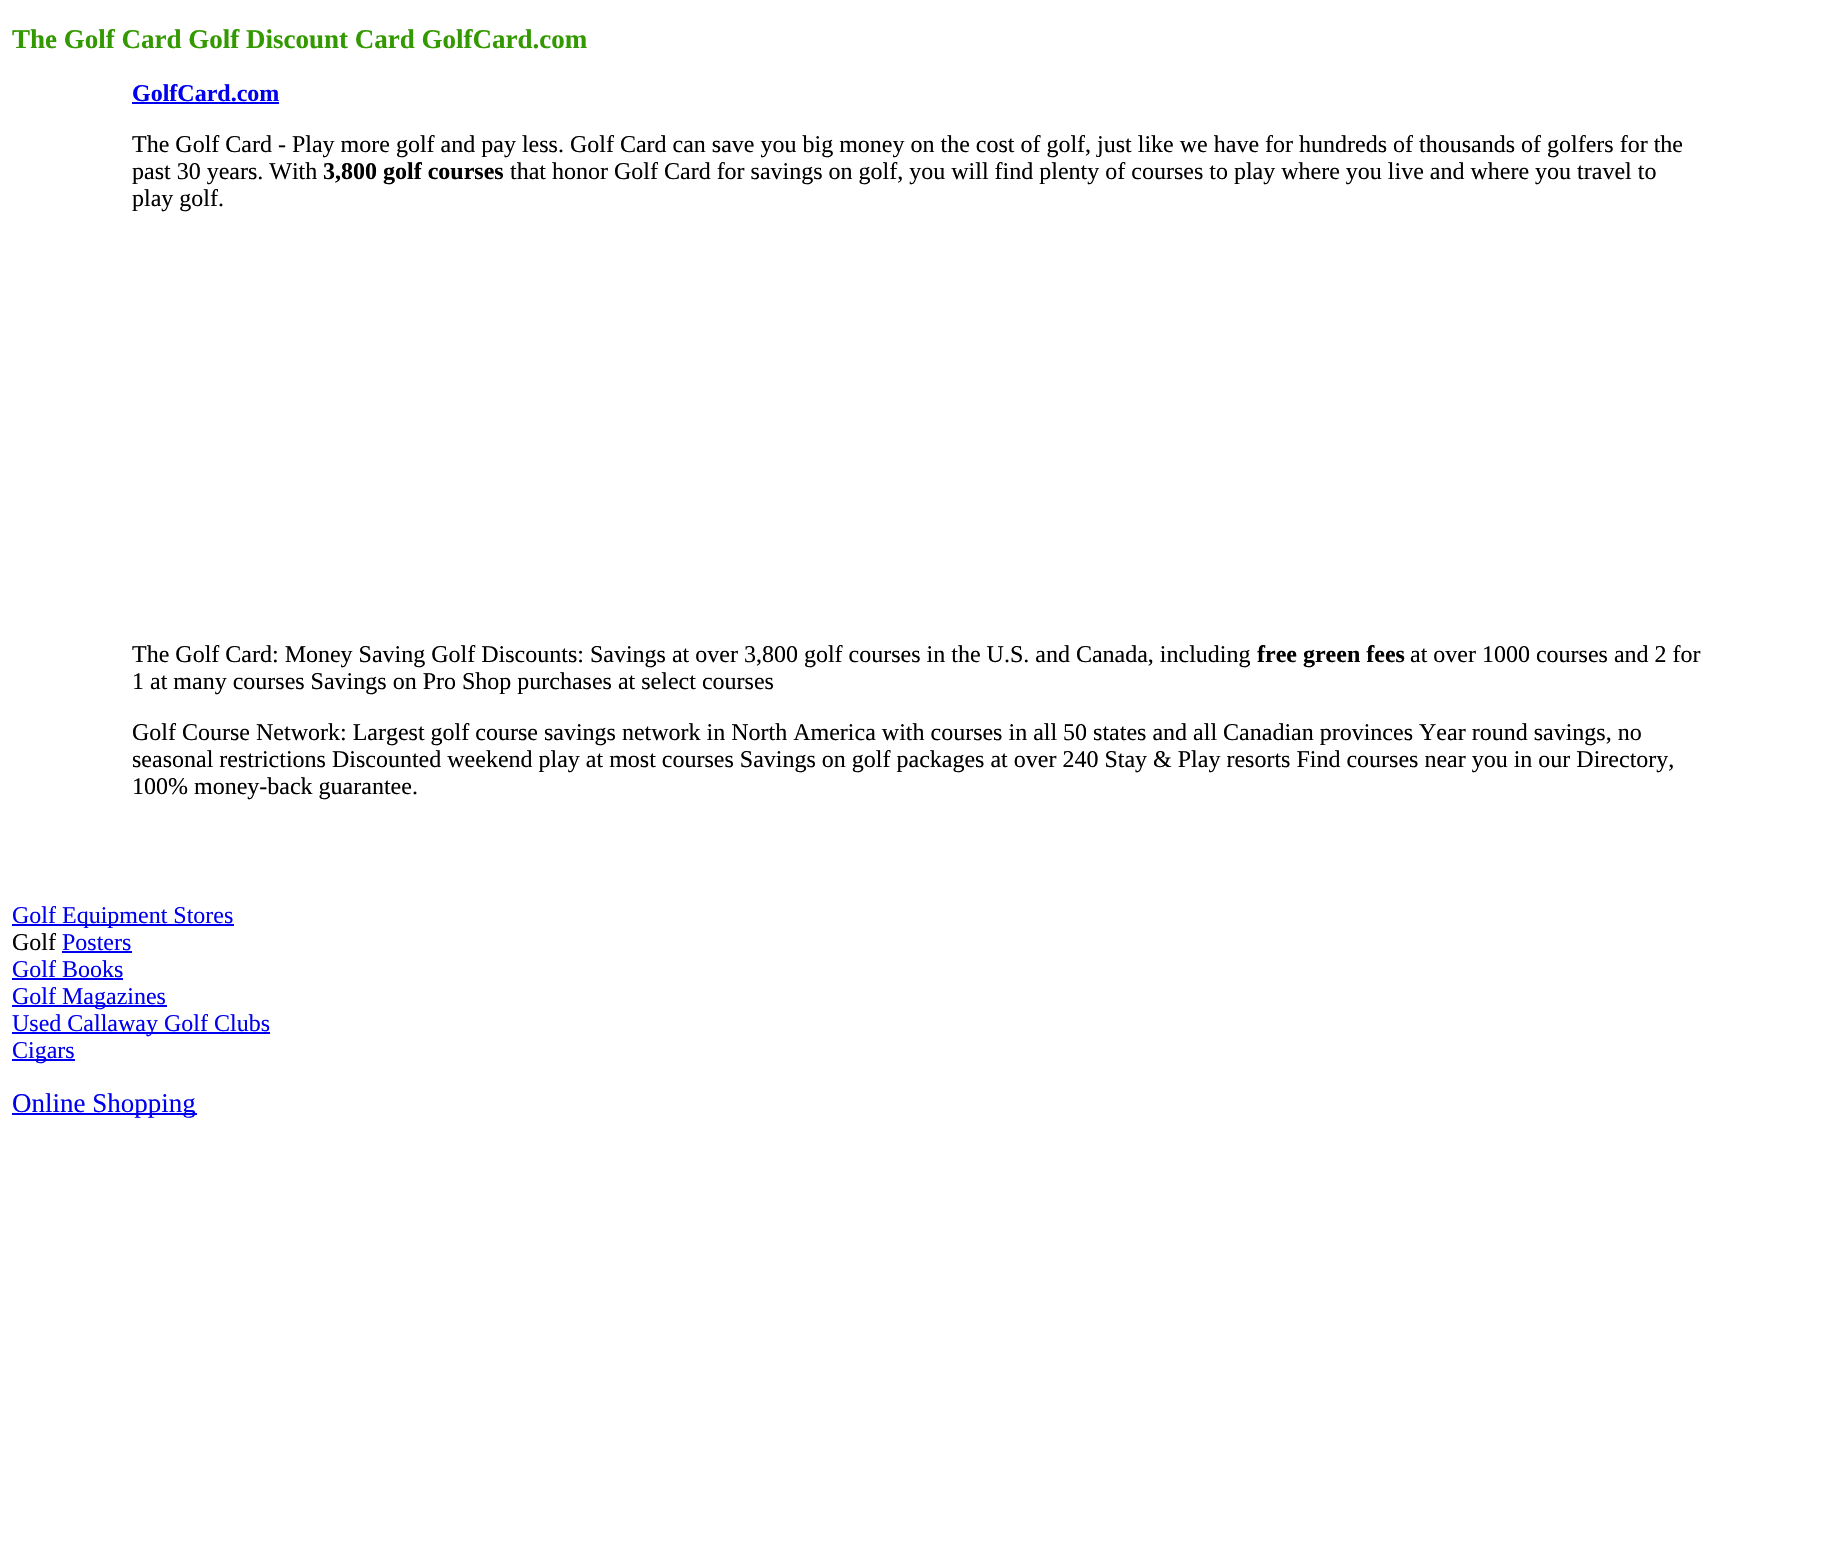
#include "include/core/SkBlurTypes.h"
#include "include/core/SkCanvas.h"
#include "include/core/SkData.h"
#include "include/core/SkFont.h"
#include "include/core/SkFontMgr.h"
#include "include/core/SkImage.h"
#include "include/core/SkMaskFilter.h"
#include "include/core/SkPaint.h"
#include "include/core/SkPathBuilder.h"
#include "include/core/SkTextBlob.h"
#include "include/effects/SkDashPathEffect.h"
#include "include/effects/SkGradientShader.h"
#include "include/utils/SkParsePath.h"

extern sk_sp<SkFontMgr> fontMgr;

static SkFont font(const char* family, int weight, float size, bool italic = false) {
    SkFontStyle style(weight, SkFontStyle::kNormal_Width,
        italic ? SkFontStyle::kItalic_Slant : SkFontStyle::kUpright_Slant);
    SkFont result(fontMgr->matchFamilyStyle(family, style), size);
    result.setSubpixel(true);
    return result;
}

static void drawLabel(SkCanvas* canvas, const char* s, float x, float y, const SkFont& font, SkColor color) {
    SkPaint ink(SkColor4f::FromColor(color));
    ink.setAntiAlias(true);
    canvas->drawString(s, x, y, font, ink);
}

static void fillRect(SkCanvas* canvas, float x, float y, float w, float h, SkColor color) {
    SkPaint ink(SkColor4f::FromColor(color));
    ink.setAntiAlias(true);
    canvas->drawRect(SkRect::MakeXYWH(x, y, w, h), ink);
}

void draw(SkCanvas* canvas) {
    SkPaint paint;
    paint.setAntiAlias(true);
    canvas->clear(0xFFFFFFFF);
    SkFont font1 = font("Liberation Serif", 700, 27);
    drawLabel(canvas, "The Golf Card Golf Discount Card GolfCard.com", 12, 48, font1, 0xFF339900);
    SkFont font2 = font("Liberation Serif", 700, 24);
    drawLabel(canvas, "GolfCard.com", 132, 101, font2, 0xFF0000EE);
    fillRect(canvas, 132, 102, 147, 2, 0xFF0000EE);
    SkFont font3 = font("Liberation Serif", 400, 24);
    drawLabel(canvas, "The Golf Card - Play more golf and pay less. Golf Card can save you big money on the cost of golf, just like we have for hundreds of thousands of golfers for the", 132, 152, font3, 0xFF000000);
    drawLabel(canvas, "past 30 years. With", 132, 179, font3, 0xFF000000);
    drawLabel(canvas, "3,800 golf courses", 323, 179, font2, 0xFF000000);
    drawLabel(canvas, "that honor Golf Card for savings on golf, you will find plenty of courses to play where you live and where you travel to", 510, 179, font3, 0xFF000000);
    drawLabel(canvas, "play golf.", 132, 206, font3, 0xFF000000);
    drawLabel(canvas, "The Golf Card: Money Saving Golf Discounts: Savings at over 3,800 golf courses in the U.S. and Canada, including", 132, 662, font3, 0xFF000000);
    drawLabel(canvas, "free green fees", 1257, 662, font2, 0xFF000000);
    drawLabel(canvas, "at over 1000 courses and 2 for", 1410, 662, font3, 0xFF000000);
    drawLabel(canvas, "1 at many courses Savings on Pro Shop purchases at select courses", 132, 689, font3, 0xFF000000);
    drawLabel(canvas, "Golf Course Network: Largest golf course savings network in North America with courses in all 50 states and all Canadian provinces Year round savings, no", 132, 740, font3, 0xFF000000);
    drawLabel(canvas, "seasonal restrictions Discounted weekend play at most courses Savings on golf packages at over 240 Stay & Play resorts Find courses near you in our Directory,", 132, 767, font3, 0xFF000000);
    drawLabel(canvas, "100% money-back guarantee.", 132, 794, font3, 0xFF000000);
    fillRect(canvas, 12, 924, 222, 2, 0xFF0000EE);
    drawLabel(canvas, "Golf Equipment Stores", 12, 923, font3, 0xFF0000EE);
    drawLabel(canvas, "Golf", 12, 950, font3, 0xFF000000);
    drawLabel(canvas, "Posters", 62, 950, font3, 0xFF0000EE);
    fillRect(canvas, 62, 951, 70, 2, 0xFF0000EE);
    drawLabel(canvas, "Golf Books", 12, 977, font3, 0xFF0000EE);
    fillRect(canvas, 12, 978, 111, 2, 0xFF0000EE);
    fillRect(canvas, 12, 1005, 155, 2, 0xFF0000EE);
    drawLabel(canvas, "Golf Magazines", 12, 1004, font3, 0xFF0000EE);
    fillRect(canvas, 12, 1032, 258, 2, 0xFF0000EE);
    drawLabel(canvas, "Used Callaway Golf Clubs", 12, 1031, font3, 0xFF0000EE);
    fillRect(canvas, 12, 1059, 63, 2, 0xFF0000EE);
    drawLabel(canvas, "Cigars", 12, 1058, font3, 0xFF0000EE);
    fillRect(canvas, 12, 1113, 185, 2, 0xFF0000EE);
    SkFont font4 = font("Liberation Serif", 400, 27);
    drawLabel(canvas, "Online Shopping", 12, 1112, font4, 0xFF0000EE);
}
